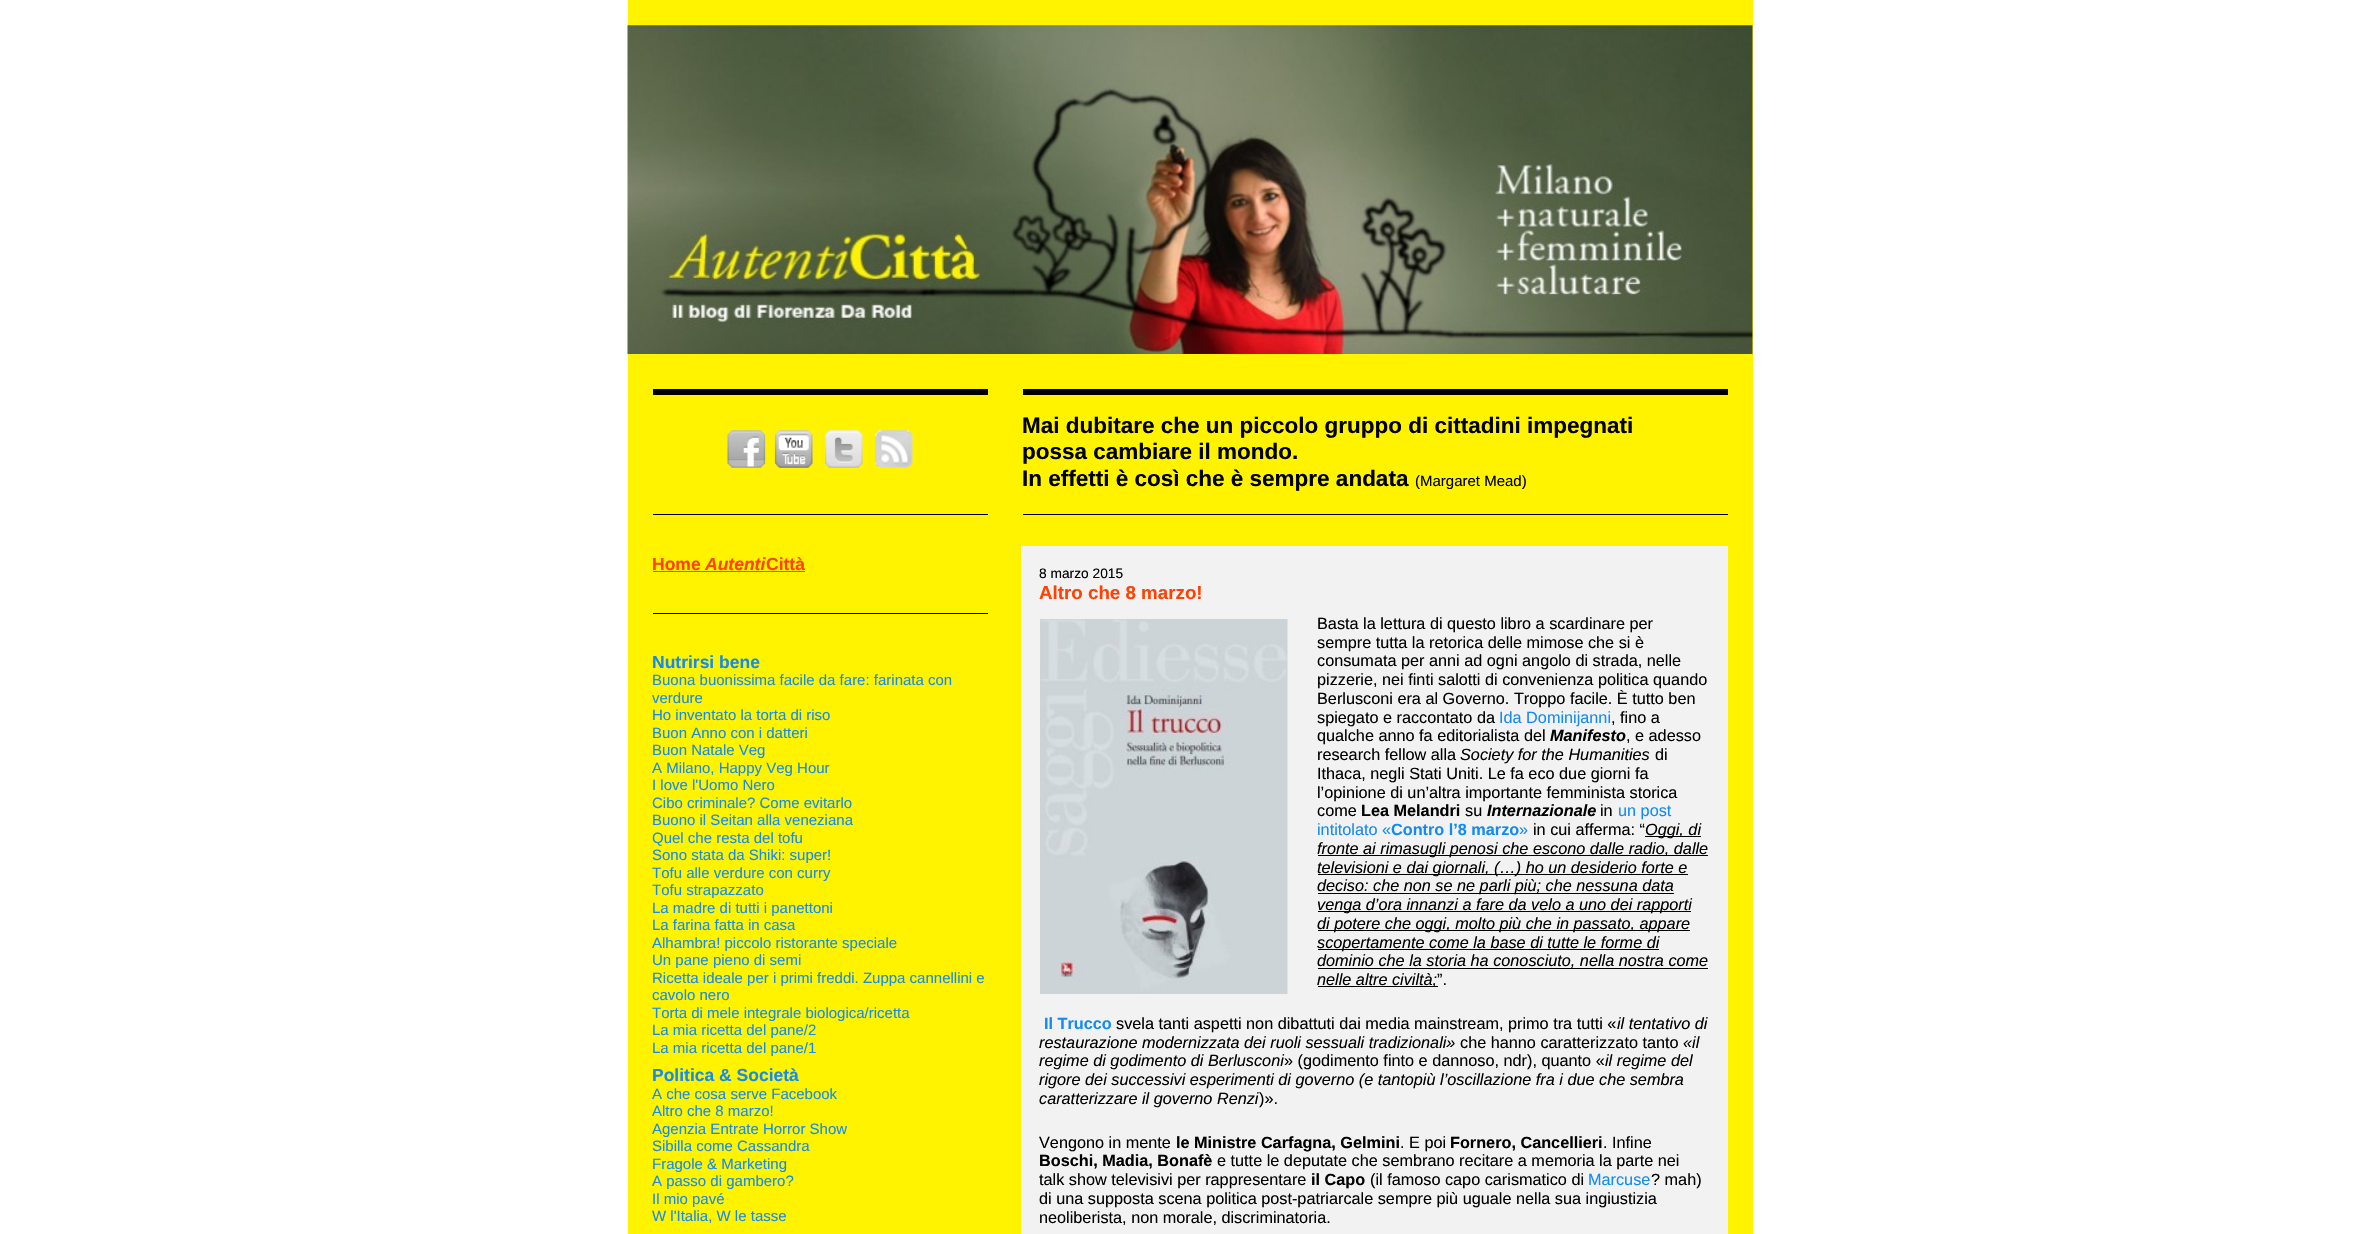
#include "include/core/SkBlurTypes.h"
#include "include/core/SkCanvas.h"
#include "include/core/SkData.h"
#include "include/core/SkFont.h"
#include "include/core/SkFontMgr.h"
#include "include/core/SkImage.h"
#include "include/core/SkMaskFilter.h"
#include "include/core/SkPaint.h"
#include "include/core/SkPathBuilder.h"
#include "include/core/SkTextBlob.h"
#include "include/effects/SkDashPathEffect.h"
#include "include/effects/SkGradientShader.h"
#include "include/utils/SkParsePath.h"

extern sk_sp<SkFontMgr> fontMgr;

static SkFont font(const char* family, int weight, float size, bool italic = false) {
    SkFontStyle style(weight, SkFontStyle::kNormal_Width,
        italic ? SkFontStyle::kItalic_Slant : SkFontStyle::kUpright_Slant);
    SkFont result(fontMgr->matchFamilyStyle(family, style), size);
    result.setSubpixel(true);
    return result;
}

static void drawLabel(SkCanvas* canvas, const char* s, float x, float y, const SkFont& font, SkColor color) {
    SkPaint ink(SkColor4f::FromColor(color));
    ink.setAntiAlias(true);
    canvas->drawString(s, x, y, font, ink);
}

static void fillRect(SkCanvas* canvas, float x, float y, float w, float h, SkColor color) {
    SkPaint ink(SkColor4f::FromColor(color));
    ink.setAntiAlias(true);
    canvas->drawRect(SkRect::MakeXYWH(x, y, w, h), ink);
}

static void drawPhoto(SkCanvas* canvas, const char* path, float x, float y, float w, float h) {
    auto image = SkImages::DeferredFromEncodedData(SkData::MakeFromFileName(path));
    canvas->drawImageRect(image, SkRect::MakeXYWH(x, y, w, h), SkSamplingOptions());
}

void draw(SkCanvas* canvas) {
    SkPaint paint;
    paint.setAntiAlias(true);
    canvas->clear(0xFFFFFFFF);
    fillRect(canvas, 628, 0, 1125, 1234, 0xFFFFF300);
    drawPhoto(canvas, "assets/img1.png", 627, 25, 1126, 329);
    fillRect(canvas, 653, 389, 335, 6, 0xFF000000);
    fillRect(canvas, 653, 514, 335, 1, 0xFF000000);
    drawPhoto(canvas, "assets/img2.png", 727, 430, 186, 38);
    fillRect(canvas, 1023, 389, 705, 6, 0xFF000000);
    fillRect(canvas, 1023, 514, 705, 1, 0xFF000000);
    SkFont font1 = font("Liberation Sans", 700, 22.5f);
    drawLabel(canvas, "Mai dubitare che un piccolo gruppo di cittadini impegnati", 1022, 433, font1, 0xFF000000);
    drawLabel(canvas, "possa cambiare il mondo.", 1022, 459, font1, 0xFF000000);
    drawLabel(canvas, "In effetti è così che è sempre andata", 1022, 486, font1, 0xFF000000);
    SkFont font2 = font("Liberation Sans", 400, 15);
    drawLabel(canvas, "(Margaret Mead)", 1415, 486, font2, 0xFF000000);
    fillRect(canvas, 653, 613, 335, 1, 0xFF000000);
    SkFont font3 = font("Liberation Sans", 700, 17.5f);
    drawLabel(canvas, "Home", 652, 570, font3, 0xFFFF4200);
    fillRect(canvas, 653, 571, 152, 1, 0xFFFF4200);
    SkFont font4 = font("Liberation Sans", 700, 17.5f, true);
    drawLabel(canvas, "Autenti", 705, 570, font4, 0xFFFF4200);
    drawLabel(canvas, "Città", 766, 570, font3, 0xFFFF4200);
    drawLabel(canvas, "Nutrirsi bene", 652, 668, font3, 0xFF138BF2);
    drawLabel(canvas, "Buona buonissima facile da fare: farinata con", 652, 685, font2, 0xFF138BF2);
    drawLabel(canvas, "verdure", 652, 703, font2, 0xFF138BF2);
    drawLabel(canvas, "Ho inventato la torta di riso", 652, 720, font2, 0xFF138BF2);
    drawLabel(canvas, "Buon Anno con i datteri", 652, 738, font2, 0xFF138BF2);
    drawLabel(canvas, "Buon Natale Veg", 652, 755, font2, 0xFF138BF2);
    drawLabel(canvas, "A Milano, Happy Veg Hour", 652, 773, font2, 0xFF138BF2);
    drawLabel(canvas, "I love l'Uomo Nero", 652, 790, font2, 0xFF138BF2);
    drawLabel(canvas, "Cibo criminale? Come evitarlo", 652, 808, font2, 0xFF138BF2);
    drawLabel(canvas, "Buono il Seitan alla veneziana", 652, 825, font2, 0xFF138BF2);
    drawLabel(canvas, "Quel che resta del tofu", 652, 843, font2, 0xFF138BF2);
    drawLabel(canvas, "Sono stata da Shiki: super!", 652, 860, font2, 0xFF138BF2);
    drawLabel(canvas, "Tofu alle verdure con curry", 652, 878, font2, 0xFF138BF2);
    drawLabel(canvas, "Tofu strapazzato", 652, 895, font2, 0xFF138BF2);
    drawLabel(canvas, "La madre di tutti i panettoni", 652, 913, font2, 0xFF138BF2);
    drawLabel(canvas, "La farina fatta in casa", 652, 930, font2, 0xFF138BF2);
    drawLabel(canvas, "Alhambra! piccolo ristorante speciale", 652, 948, font2, 0xFF138BF2);
    drawLabel(canvas, "Un pane pieno di semi", 652, 965, font2, 0xFF138BF2);
    drawLabel(canvas, "Ricetta ideale per i primi freddi. Zuppa cannellini e", 652, 983, font2, 0xFF138BF2);
    drawLabel(canvas, "cavolo nero", 652, 1000, font2, 0xFF138BF2);
    drawLabel(canvas, "Torta di mele integrale biologica/ricetta", 652, 1018, font2, 0xFF138BF2);
    drawLabel(canvas, "La mia ricetta del pane/2", 652, 1035, font2, 0xFF138BF2);
    drawLabel(canvas, "La mia ricetta del pane/1", 652, 1053, font2, 0xFF138BF2);
    drawLabel(canvas, "Politica & Società", 652, 1081, font3, 0xFF138BF2);
    drawLabel(canvas, "A che cosa serve Facebook", 652, 1099, font2, 0xFF138BF2);
    drawLabel(canvas, "Altro che 8 marzo!", 652, 1116, font2, 0xFF138BF2);
    drawLabel(canvas, "Agenzia Entrate Horror Show", 652, 1134, font2, 0xFF138BF2);
    drawLabel(canvas, "Sibilla come Cassandra", 652, 1151, font2, 0xFF138BF2);
    drawLabel(canvas, "Fragole & Marketing", 652, 1169, font2, 0xFF138BF2);
    drawLabel(canvas, "A passo di gambero?", 652, 1186, font2, 0xFF138BF2);
    drawLabel(canvas, "Il mio pavé", 652, 1204, font2, 0xFF138BF2);
    drawLabel(canvas, "W l'Italia, W le tasse", 652, 1221, font2, 0xFF138BF2);
    fillRect(canvas, 1021, 546, 707, 688, 0xFFF1F2F1);
    SkFont font5 = font("Liberation Sans", 400, 13.75f);
    drawLabel(canvas, "8 marzo 2015", 1039, 578, font5, 0xFF000000);
    SkFont font6 = font("Liberation Sans", 700, 18.75f);
    drawLabel(canvas, "Altro che 8 marzo!", 1039, 599, font6, 0xFFFF4200);
    drawPhoto(canvas, "assets/img3.png", 1040, 619, 248, 375);
    SkFont font7 = font("Liberation Sans", 400, 16.25f);
    drawLabel(canvas, "Basta la lettura di questo libro a scardinare per", 1317, 629, font7, 0xFF000000);
    drawLabel(canvas, "sempre tutta la retorica delle mimose che si è", 1317, 648, font7, 0xFF000000);
    drawLabel(canvas, "consumata per anni ad ogni angolo di strada, nelle", 1317, 666, font7, 0xFF000000);
    drawLabel(canvas, "pizzerie, nei finti salotti di convenienza politica quando", 1317, 685, font7, 0xFF000000);
    drawLabel(canvas, "Berlusconi era al Governo. Troppo facile. È tutto ben", 1317, 704, font7, 0xFF000000);
    drawLabel(canvas, "spiegato e raccontato da", 1317, 723, font7, 0xFF000000);
    drawLabel(canvas, "Ida Dominijanni", 1499, 723, font7, 0xFF138BF2);
    drawLabel(canvas, ", fino a", 1611, 723, font7, 0xFF000000);
    drawLabel(canvas, "qualche anno fa editorialista del", 1317, 741, font7, 0xFF000000);
    SkFont font8 = font("Liberation Sans", 700, 16.25f, true);
    drawLabel(canvas, "Manifesto", 1550, 741, font8, 0xFF000000);
    drawLabel(canvas, ", e adesso", 1626, 741, font7, 0xFF000000);
    drawLabel(canvas, "research fellow alla", 1317, 760, font7, 0xFF000000);
    SkFont font9 = font("Liberation Sans", 400, 16.25f, true);
    drawLabel(canvas, "Society for the Humanities", 1460, 760, font9, 0xFF000000);
    drawLabel(canvas, "di", 1655, 760, font7, 0xFF000000);
    drawLabel(canvas, "Ithaca, negli Stati Uniti. Le fa eco due giorni fa", 1317, 779, font7, 0xFF000000);
    drawLabel(canvas, "l’opinione di un’altra importante femminista storica", 1317, 798, font7, 0xFF000000);
    drawLabel(canvas, "come", 1317, 816, font7, 0xFF000000);
    SkFont font10 = font("Liberation Sans", 700, 16.25f);
    drawLabel(canvas, "Lea Melandri", 1361, 816, font10, 0xFF000000);
    drawLabel(canvas, "su", 1465, 816, font7, 0xFF000000);
    drawLabel(canvas, "Internazionale", 1487, 816, font8, 0xFF000000);
    drawLabel(canvas, "in", 1600, 816, font7, 0xFF000000);
    drawLabel(canvas, "un post", 1618, 816, font7, 0xFF138BF2);
    drawLabel(canvas, "intitolato «", 1317, 835, font7, 0xFF138BF2);
    drawLabel(canvas, "Contro l’8 marzo", 1391, 835, font10, 0xFF138BF2);
    drawLabel(canvas, "»", 1519, 835, font7, 0xFF138BF2);
    drawLabel(canvas, "in cui afferma: “", 1533, 835, font7, 0xFF000000);
    fillRect(canvas, 1645, 836, 56, 1, 0xFF000000);
    drawLabel(canvas, "Oggi, di", 1645, 835, font9, 0xFF000000);
    fillRect(canvas, 1318, 855, 390, 1, 0xFF000000);
    drawLabel(canvas, "fronte ai rimasugli penosi che escono dalle radio, dalle", 1317, 854, font9, 0xFF000000);
    fillRect(canvas, 1318, 874, 370, 1, 0xFF000000);
    drawLabel(canvas, "televisioni e dai giornali, (…) ho un desiderio forte e", 1317, 873, font9, 0xFF000000);
    fillRect(canvas, 1318, 893, 356, 1, 0xFF000000);
    drawLabel(canvas, "deciso: che non se ne parli più; che nessuna data", 1317, 891, font9, 0xFF000000);
    fillRect(canvas, 1318, 911, 373, 1, 0xFF000000);
    drawLabel(canvas, "venga d’ora innanzi a fare da velo a uno dei rapporti", 1317, 910, font9, 0xFF000000);
    fillRect(canvas, 1318, 930, 372, 1, 0xFF000000);
    drawLabel(canvas, "di potere che oggi, molto più che in passato, appare", 1317, 929, font9, 0xFF000000);
    fillRect(canvas, 1318, 949, 341, 1, 0xFF000000);
    drawLabel(canvas, "scopertamente come la base di tutte le forme di", 1317, 948, font9, 0xFF000000);
    fillRect(canvas, 1318, 968, 390, 1, 0xFF000000);
    drawLabel(canvas, "dominio che la storia ha conosciuto, nella nostra come", 1317, 966, font9, 0xFF000000);
    fillRect(canvas, 1318, 986, 120, 1, 0xFF000000);
    drawLabel(canvas, "nelle altre civiltà;", 1317, 985, font9, 0xFF000000);
    drawLabel(canvas, "”.", 1437, 985, font7, 0xFF000000);
    drawLabel(canvas, "Il Trucco", 1044, 1029, font10, 0xFF138BF2);
    drawLabel(canvas, "svela tanti aspetti non dibattuti dai media mainstream, primo tra tutti «", 1116, 1029, font7, 0xFF000000);
    drawLabel(canvas, "il tentativo di", 1617, 1029, font9, 0xFF000000);
    drawLabel(canvas, "restaurazione modernizzata dei ruoli sessuali tradizionali»", 1039, 1048, font9, 0xFF000000);
    drawLabel(canvas, "che hanno caratterizzato tanto", 1460, 1048, font7, 0xFF000000);
    drawLabel(canvas, "«il", 1683, 1048, font9, 0xFF000000);
    drawLabel(canvas, "regime di godimento di Berlusconi", 1039, 1066, font9, 0xFF000000);
    drawLabel(canvas, "» (godimento finto e dannoso, ndr), quanto «", 1284, 1066, font7, 0xFF000000);
    drawLabel(canvas, "il regime del", 1605, 1066, font9, 0xFF000000);
    drawLabel(canvas, "rigore dei successivi esperimenti di governo (e tantopiù l’oscillazione fra i due che sembra", 1039, 1085, font9, 0xFF000000);
    drawLabel(canvas, "caratterizzare il governo Renzi", 1039, 1104, font9, 0xFF000000);
    drawLabel(canvas, ")».", 1259, 1104, font7, 0xFF000000);
    drawLabel(canvas, "Vengono in mente", 1039, 1148, font7, 0xFF000000);
    drawLabel(canvas, "le Ministre Carfagna, Gelmini", 1176, 1148, font10, 0xFF000000);
    drawLabel(canvas, ". E poi", 1400, 1148, font7, 0xFF000000);
    drawLabel(canvas, "Fornero, Cancellieri", 1450, 1148, font10, 0xFF000000);
    drawLabel(canvas, ". Infine", 1603, 1148, font7, 0xFF000000);
    drawLabel(canvas, "Boschi, Madia, Bonafè", 1039, 1166, font10, 0xFF000000);
    drawLabel(canvas, "e tutte le deputate che sembrano recitare a memoria la parte nei", 1217, 1166, font7, 0xFF000000);
    drawLabel(canvas, "talk show televisivi per rappresentare", 1039, 1185, font7, 0xFF000000);
    drawLabel(canvas, "il Capo", 1311, 1185, font10, 0xFF000000);
    drawLabel(canvas, "(il famoso capo carismatico di", 1370, 1185, font7, 0xFF000000);
    drawLabel(canvas, "Marcuse", 1588, 1185, font7, 0xFF138BF2);
    drawLabel(canvas, "? mah)", 1651, 1185, font7, 0xFF000000);
    drawLabel(canvas, "di una supposta scena politica post-patriarcale sempre più uguale nella sua ingiustizia", 1039, 1204, font7, 0xFF000000);
    drawLabel(canvas, "neoliberista, non morale, discriminatoria.", 1039, 1223, font7, 0xFF000000);
}
